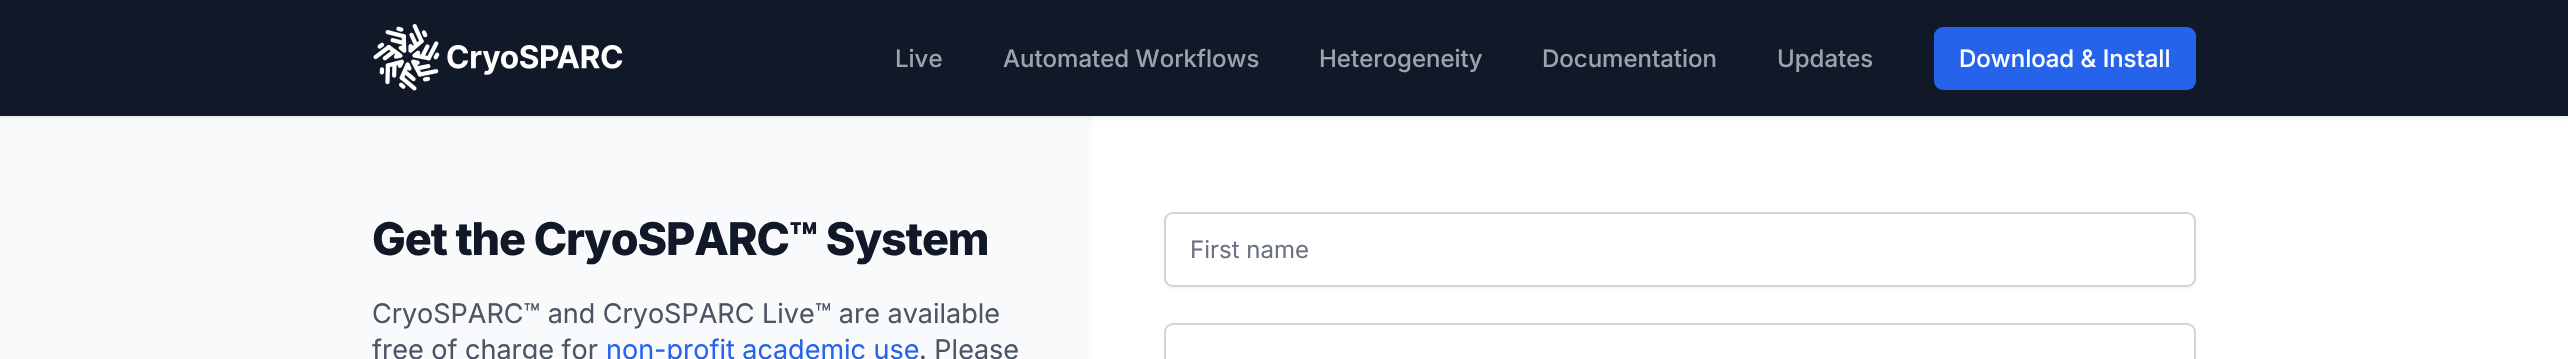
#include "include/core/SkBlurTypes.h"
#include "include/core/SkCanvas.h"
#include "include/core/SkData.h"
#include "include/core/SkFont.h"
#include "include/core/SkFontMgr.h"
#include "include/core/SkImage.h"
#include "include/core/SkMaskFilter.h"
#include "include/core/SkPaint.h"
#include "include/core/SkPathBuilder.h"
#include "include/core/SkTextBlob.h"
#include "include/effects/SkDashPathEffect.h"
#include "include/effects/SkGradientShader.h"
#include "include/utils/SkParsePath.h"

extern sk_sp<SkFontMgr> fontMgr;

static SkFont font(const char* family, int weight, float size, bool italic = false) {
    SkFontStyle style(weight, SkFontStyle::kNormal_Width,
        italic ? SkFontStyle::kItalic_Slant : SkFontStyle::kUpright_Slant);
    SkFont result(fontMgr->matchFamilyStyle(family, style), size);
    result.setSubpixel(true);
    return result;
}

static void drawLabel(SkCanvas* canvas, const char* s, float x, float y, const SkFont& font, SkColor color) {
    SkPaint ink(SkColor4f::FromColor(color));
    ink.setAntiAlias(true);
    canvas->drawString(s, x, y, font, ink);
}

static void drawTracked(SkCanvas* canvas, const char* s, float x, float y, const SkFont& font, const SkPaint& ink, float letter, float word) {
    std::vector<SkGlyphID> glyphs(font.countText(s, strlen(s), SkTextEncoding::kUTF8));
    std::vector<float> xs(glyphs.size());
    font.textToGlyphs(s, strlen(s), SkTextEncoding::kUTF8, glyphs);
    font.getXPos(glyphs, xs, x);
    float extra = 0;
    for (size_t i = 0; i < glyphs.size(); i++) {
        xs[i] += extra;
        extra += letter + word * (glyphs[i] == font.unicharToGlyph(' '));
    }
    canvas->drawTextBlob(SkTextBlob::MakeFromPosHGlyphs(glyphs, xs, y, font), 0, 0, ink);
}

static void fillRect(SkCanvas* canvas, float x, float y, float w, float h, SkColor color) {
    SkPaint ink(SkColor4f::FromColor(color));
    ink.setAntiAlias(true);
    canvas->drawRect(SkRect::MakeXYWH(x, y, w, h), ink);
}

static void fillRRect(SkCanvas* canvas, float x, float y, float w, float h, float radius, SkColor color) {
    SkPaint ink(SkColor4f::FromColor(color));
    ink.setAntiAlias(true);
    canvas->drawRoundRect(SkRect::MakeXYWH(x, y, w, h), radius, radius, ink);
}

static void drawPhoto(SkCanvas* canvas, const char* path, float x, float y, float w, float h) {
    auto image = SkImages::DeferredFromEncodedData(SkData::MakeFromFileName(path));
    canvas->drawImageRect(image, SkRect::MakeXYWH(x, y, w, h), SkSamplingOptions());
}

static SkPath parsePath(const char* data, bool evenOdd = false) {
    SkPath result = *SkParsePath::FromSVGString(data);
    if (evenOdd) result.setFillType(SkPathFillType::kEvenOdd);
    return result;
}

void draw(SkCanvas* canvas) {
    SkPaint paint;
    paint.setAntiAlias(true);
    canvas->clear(0xFFFFFFFF);
    fillRect(canvas, 0, 0, 2568, 116, 0xFF111827);
    drawPhoto(canvas, "assets/img1.png", 373, 24, 250, 67);
    fillRRect(canvas, 1934, 27, 262, 63, 9, 0xFF2563EB);
    fillRect(canvas, 0, 116, 1092, 243, 0xFFF9FAFB);
    canvas->save();
    canvas->clipPath(parsePath("M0 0H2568V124H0ZM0 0H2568V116H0Z", true), true);
    paint.setColor(0x1A000000);
    paint.setMaskFilter(SkMaskFilter::MakeBlur(kNormal_SkBlurStyle, 2));
    canvas->drawRect(SkRect::MakeXYWH(0, 2, 2568, 115), paint);
    paint.setMaskFilter(nullptr);
    canvas->restore();
    SkFont font1 = font("Inter", 500, 24);
    drawLabel(canvas, "Live", 895, 67, font1, 0xFF9CA3AF);
    drawLabel(canvas, "Automated Workflows", 1003, 67, font1, 0xFF9CA3AF);
    drawLabel(canvas, "Heterogeneity", 1319, 67, font1, 0xFF9CA3AF);
    drawLabel(canvas, "Documentation", 1542, 67, font1, 0xFF9CA3AF);
    drawLabel(canvas, "Updates", 1777, 67, font1, 0xFF9CA3AF);
    drawLabel(canvas, "Download & Install", 1959, 67, font1, 0xFFFFFFFF);
    SkFont font2 = font("Inter", 800, 45);
    paint.setColor(0xFF111827);
    drawTracked(canvas, "Get the CryoSPARC™ System", 372, 255, font2, paint, -1.1f, 0);
    SkFont font3 = font("Inter", 400, 27);
    drawLabel(canvas, "CryoSPARC™ and CryoSPARC Live™ are available", 372, 323, font3, 0xFF4B5563);
    drawLabel(canvas, "free of charge for", 372, 359, font3, 0xFF4B5563);
    drawLabel(canvas, "non-profit academic use", 606, 359, font3, 0xFF2563EB);
    drawLabel(canvas, ". Please", 919, 359, font3, 0xFF4B5563);
    paint.setColor(0x0D000000);
    paint.setMaskFilter(SkMaskFilter::MakeBlur(kNormal_SkBlurStyle, 1.5f));
    canvas->drawRoundRect(SkRect::MakeXYWH(1164, 213, 1032, 75), 9, 9, paint);
    paint.setMaskFilter(nullptr);
    paint.setColor(0xFFFFFFFF);
    canvas->drawRoundRect(SkRect::MakeXYWH(1165, 213, 1030, 73), 8, 8, paint);
    paint.setStroke(true);
    paint.setStrokeWidth(2);
    paint.setColor(0xFFD1D5DB);
    canvas->drawRoundRect(SkRect::MakeXYWH(1165, 213, 1030, 73), 8, 8, paint);
    SkFont font4 = font("Inter", 400, 24);
    drawLabel(canvas, "First name", 1190, 258, font4, 0xFF6B7280);
    canvas->drawRoundRect(SkRect::MakeXYWH(1165, 324, 1030, 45), 8, 8, paint);
}
